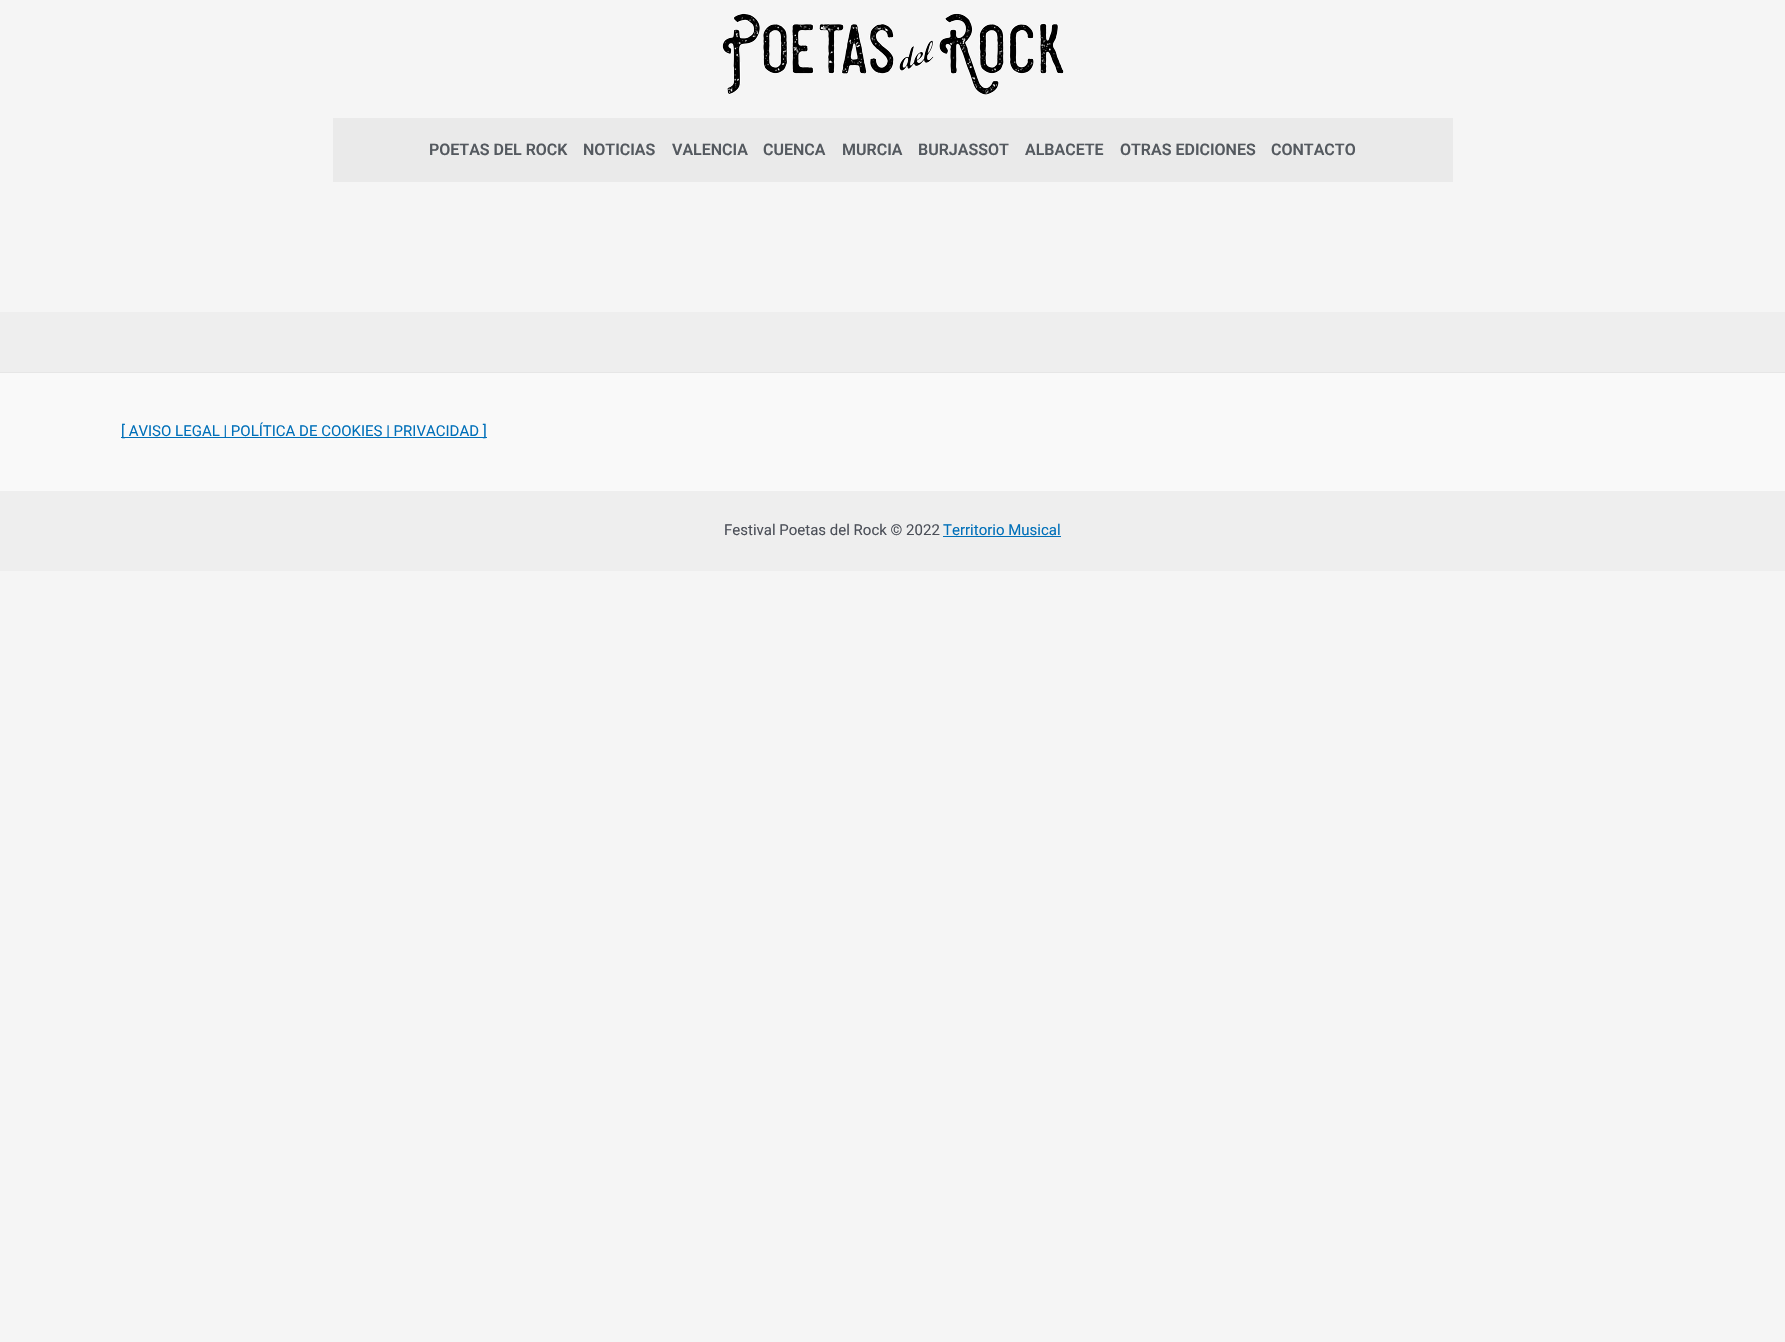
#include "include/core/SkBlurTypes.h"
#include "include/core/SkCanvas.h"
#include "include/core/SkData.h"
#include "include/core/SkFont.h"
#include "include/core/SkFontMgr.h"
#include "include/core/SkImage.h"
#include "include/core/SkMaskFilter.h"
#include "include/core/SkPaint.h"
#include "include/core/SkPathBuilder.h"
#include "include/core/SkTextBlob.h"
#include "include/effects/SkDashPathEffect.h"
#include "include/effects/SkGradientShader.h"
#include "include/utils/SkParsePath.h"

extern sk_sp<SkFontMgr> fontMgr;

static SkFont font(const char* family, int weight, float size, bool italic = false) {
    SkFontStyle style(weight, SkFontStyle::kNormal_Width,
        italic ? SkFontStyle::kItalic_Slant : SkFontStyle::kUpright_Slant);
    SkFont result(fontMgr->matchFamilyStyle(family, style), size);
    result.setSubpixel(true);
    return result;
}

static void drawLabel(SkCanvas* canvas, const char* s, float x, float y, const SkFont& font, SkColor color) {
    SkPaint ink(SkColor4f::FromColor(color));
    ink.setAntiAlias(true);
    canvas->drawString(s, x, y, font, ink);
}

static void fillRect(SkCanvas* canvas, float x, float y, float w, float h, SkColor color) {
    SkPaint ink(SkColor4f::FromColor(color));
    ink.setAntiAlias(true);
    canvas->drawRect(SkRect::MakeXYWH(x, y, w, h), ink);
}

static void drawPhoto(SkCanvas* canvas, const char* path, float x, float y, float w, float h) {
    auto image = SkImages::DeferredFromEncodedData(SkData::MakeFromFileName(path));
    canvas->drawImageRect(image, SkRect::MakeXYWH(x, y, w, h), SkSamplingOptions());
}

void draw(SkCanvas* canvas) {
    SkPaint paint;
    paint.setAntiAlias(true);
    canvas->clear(0xFFF5F5F5);
    drawPhoto(canvas, "assets/img1.png", 722, 13, 342, 82);
    fillRect(canvas, 333, 118, 1120, 64, 0xFFEAEAEA);
    SkFont font1 = font("Roboto", 600, 16);
    drawLabel(canvas, "POETAS DEL ROCK", 429, 155, font1, 0xFF54595F);
    drawLabel(canvas, "NOTICIAS", 583, 155, font1, 0xFF54595F);
    drawLabel(canvas, "VALENCIA", 672, 155, font1, 0xFF54595F);
    drawLabel(canvas, "CUENCA", 763, 155, font1, 0xFF54595F);
    drawLabel(canvas, "MURCIA", 842, 155, font1, 0xFF54595F);
    drawLabel(canvas, "BURJASSOT", 918, 155, font1, 0xFF54595F);
    drawLabel(canvas, "ALBACETE", 1025, 155, font1, 0xFF54595F);
    drawLabel(canvas, "OTRAS EDICIONES", 1120, 155, font1, 0xFF54595F);
    drawLabel(canvas, "CONTACTO", 1271, 155, font1, 0xFF54595F);
    fillRect(canvas, 0, 312, 1785, 60, 0xFFEEEEEE);
    fillRect(canvas, 0, 373, 1785, 118, 0xFFF9F9F9);
    fillRect(canvas, 0, 372, 1785, 1, 0xFFE6E6E6);
    fillRect(canvas, 121, 437, 366, 1, 0xFF0170B9);
    SkFont font2 = font("Roboto", 400, 15);
    drawLabel(canvas, "[ AVISO LEGAL | POLÍTICA DE COOKIES | PRIVACIDAD ]", 121, 436, font2, 0xFF0170B9);
    fillRect(canvas, 0, 491, 1785, 80, 0xFFEEEEEE);
    drawLabel(canvas, "Festival Poetas del Rock © 2022", 724, 535, font2, 0xFF4B4F58);
    drawLabel(canvas, "Territorio Musical", 943, 535, font2, 0xFF0170B9);
    fillRect(canvas, 943, 536, 118, 1, 0xFF0170B9);
}
